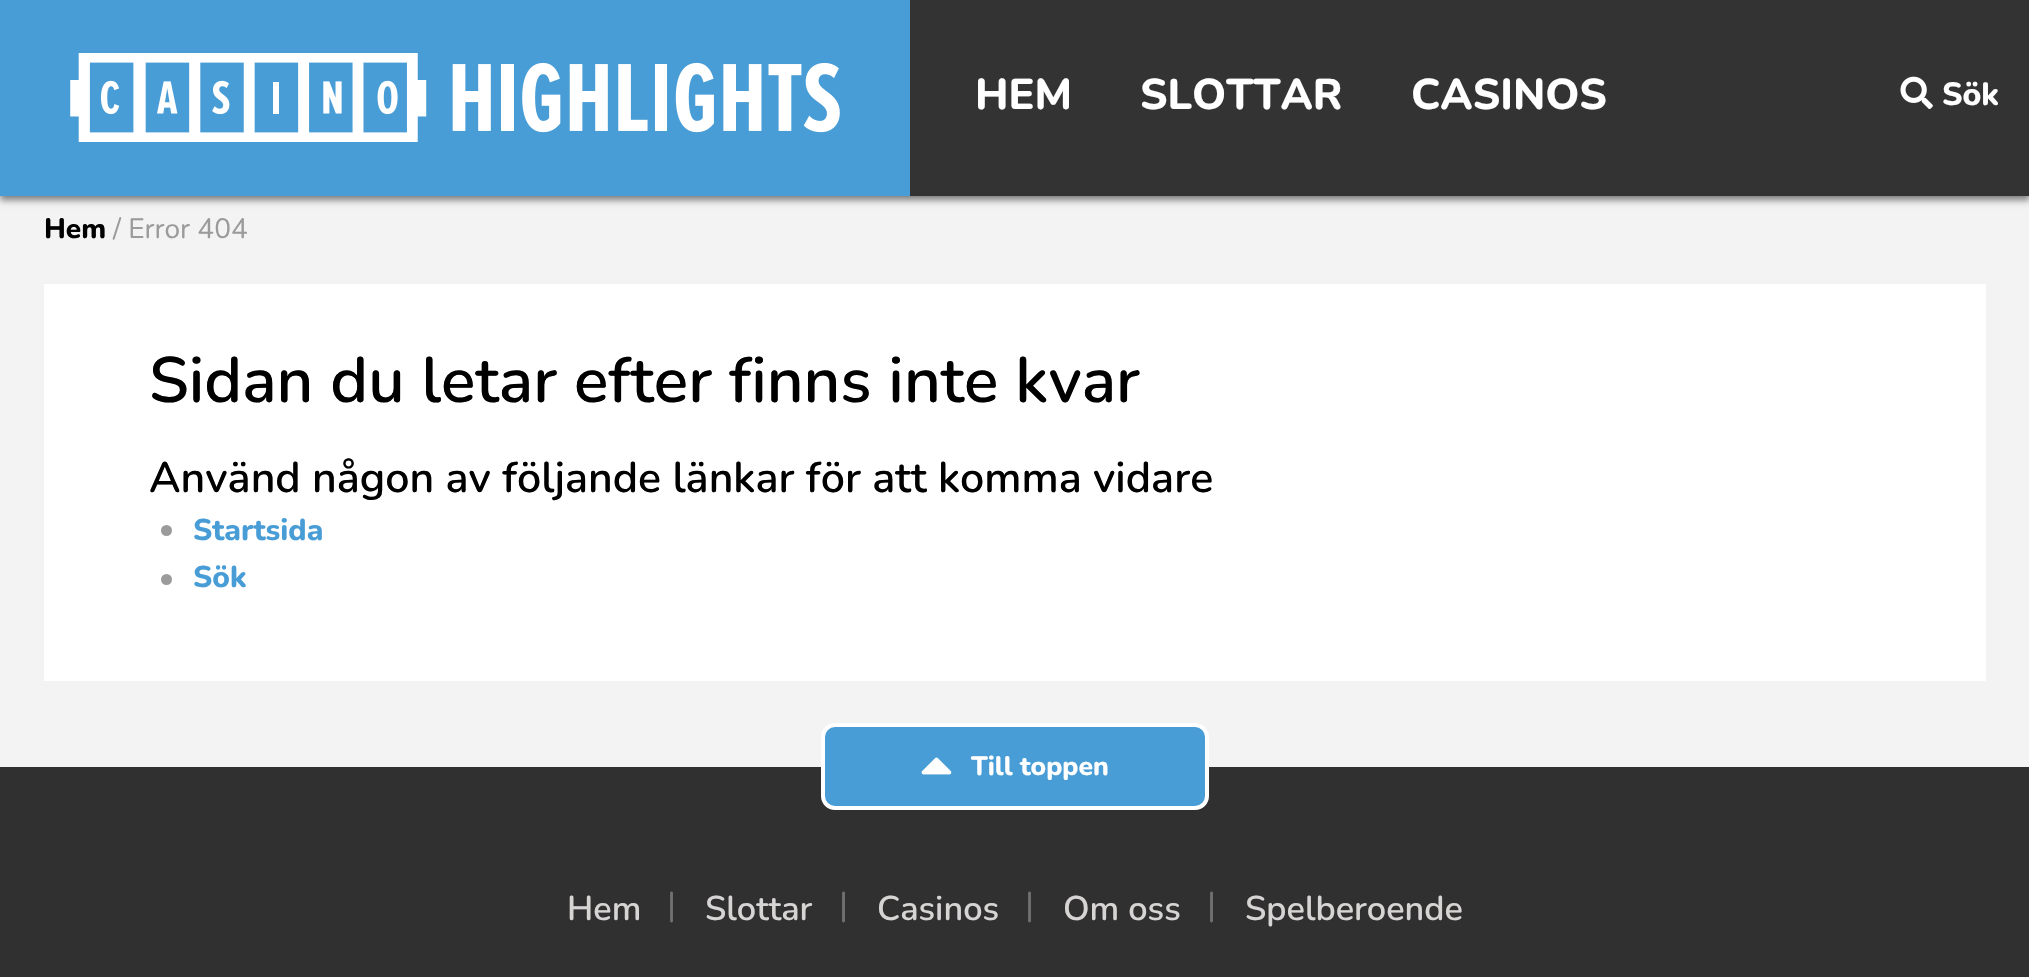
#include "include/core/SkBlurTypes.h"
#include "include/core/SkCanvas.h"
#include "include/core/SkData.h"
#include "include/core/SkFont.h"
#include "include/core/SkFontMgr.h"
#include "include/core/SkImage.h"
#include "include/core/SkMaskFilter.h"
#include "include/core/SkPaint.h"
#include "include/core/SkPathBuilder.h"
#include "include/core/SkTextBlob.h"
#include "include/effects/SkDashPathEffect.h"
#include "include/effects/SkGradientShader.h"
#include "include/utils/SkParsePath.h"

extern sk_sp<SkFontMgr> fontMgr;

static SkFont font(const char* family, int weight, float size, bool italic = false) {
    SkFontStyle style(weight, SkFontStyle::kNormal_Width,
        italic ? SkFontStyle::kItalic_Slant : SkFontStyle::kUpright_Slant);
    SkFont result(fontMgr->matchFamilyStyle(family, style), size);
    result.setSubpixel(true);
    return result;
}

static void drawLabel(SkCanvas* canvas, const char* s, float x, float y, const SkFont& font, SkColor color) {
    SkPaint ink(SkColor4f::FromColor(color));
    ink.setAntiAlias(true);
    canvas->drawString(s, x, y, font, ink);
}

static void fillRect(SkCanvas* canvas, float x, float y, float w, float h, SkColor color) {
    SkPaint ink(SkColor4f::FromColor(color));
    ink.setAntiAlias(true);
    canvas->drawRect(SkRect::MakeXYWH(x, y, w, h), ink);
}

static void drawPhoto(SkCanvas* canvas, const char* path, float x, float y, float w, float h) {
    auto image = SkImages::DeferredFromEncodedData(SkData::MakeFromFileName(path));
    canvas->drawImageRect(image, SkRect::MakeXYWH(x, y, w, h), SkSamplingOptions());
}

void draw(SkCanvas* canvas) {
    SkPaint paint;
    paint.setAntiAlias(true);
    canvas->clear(0xFF303030);
    fillRect(canvas, 0, 196, 2029, 571, 0xFFF3F3F3);
    paint.setColor(0x80000000);
    paint.setMaskFilter(SkMaskFilter::MakeBlur(kNormal_SkBlurStyle, 3.5f));
    canvas->drawRect(SkRect::MakeXYWH(0, 4, 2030, 196), paint);
    paint.setMaskFilter(nullptr);
    fillRect(canvas, 910, 0, 1119, 196, 0xFF333333);
    fillRect(canvas, 0, 0, 910, 196, 0xFF499DD6);
    drawPhoto(canvas, "assets/img1.png", 70, 53, 770, 89);
    SkFont font1 = font("Nunito", 800, 42.9f);
    drawLabel(canvas, "HEM", 975, 109, font1, 0xFFFFFFFF);
    drawLabel(canvas, "SLOTTAR", 1140, 109, font1, 0xFFFFFFFF);
    drawLabel(canvas, "CASINOS", 1411, 109, font1, 0xFFFFFFFF);
    drawPhoto(canvas, "assets/img2.png", 1900, 76, 33, 33);
    SkFont font2 = font("Nunito", 800, 32);
    drawLabel(canvas, "Sök", 1942, 105, font2, 0xFFFFFFFF);
    SkFont font3 = font("Nunito", 800, 28);
    drawLabel(canvas, "Hem", 44, 238, font3, 0xFF000000);
    SkFont font4 = font("Nunito", 400, 28);
    drawLabel(canvas, "/ Error 404", 113, 238, font4, 0xFF9B9B9B);
    fillRect(canvas, 44, 284, 1942, 397, 0xFFFFFFFF);
    SkFont font5 = font("Nunito", 600, 64);
    drawLabel(canvas, "Sidan du letar efter finns inte kvar", 149, 402, font5, 0xFF000000);
    SkFont font6 = font("Nunito", 600, 42.9f);
    drawLabel(canvas, "Använd någon av följande länkar för att komma vidare", 149, 492, font6, 0xFF000000);
    paint.setColor(0xFF9B9B9B);
    canvas->drawCircle(166.5f, 530.5f, 5.5f, paint);
    SkFont font7 = font("Nunito", 800, 30);
    drawLabel(canvas, "Startsida", 193, 540, font7, 0xFF499DD6);
    canvas->drawCircle(166.5f, 579.5f, 5.5f, paint);
    drawLabel(canvas, "Sök", 193, 587, font7, 0xFF499DD6);
    paint.setColor(0xFF499DD6);
    canvas->drawRoundRect(SkRect::MakeXYWH(823, 725, 384, 83), 12, 12, paint);
    paint.setStroke(true);
    paint.setStrokeWidth(4);
    paint.setColor(0xFFFFFFFF);
    canvas->drawRoundRect(SkRect::MakeXYWH(823, 725, 384, 83), 12, 12, paint);
    drawPhoto(canvas, "assets/img3.png", 921, 757, 31, 18);
    SkFont font8 = font("Nunito", 800, 26.5f);
    drawLabel(canvas, "Till toppen", 971, 775, font8, 0xFFFFFFFF);
    SkFont font9 = font("Nunito", 600, 34.25f);
    drawLabel(canvas, "Hem", 567, 920, font9, 0xFFD7D4D4);
    SkFont font10 = font("Nunito", 400, 34.25f);
    drawLabel(canvas, "|", 667, 916, font10, 0xFF707070);
    drawLabel(canvas, "Slottar", 705, 920, font9, 0xFFD7D4D4);
    drawLabel(canvas, "|", 839, 916, font10, 0xFF707070);
    drawLabel(canvas, "Casinos", 877, 920, font9, 0xFFD7D4D4);
    drawLabel(canvas, "|", 1025, 916, font10, 0xFF707070);
    drawLabel(canvas, "Om oss", 1063, 920, font9, 0xFFD7D4D4);
    drawLabel(canvas, "|", 1207, 916, font10, 0xFF707070);
    drawLabel(canvas, "Spelberoende", 1245, 920, font9, 0xFFD7D4D4);
}
